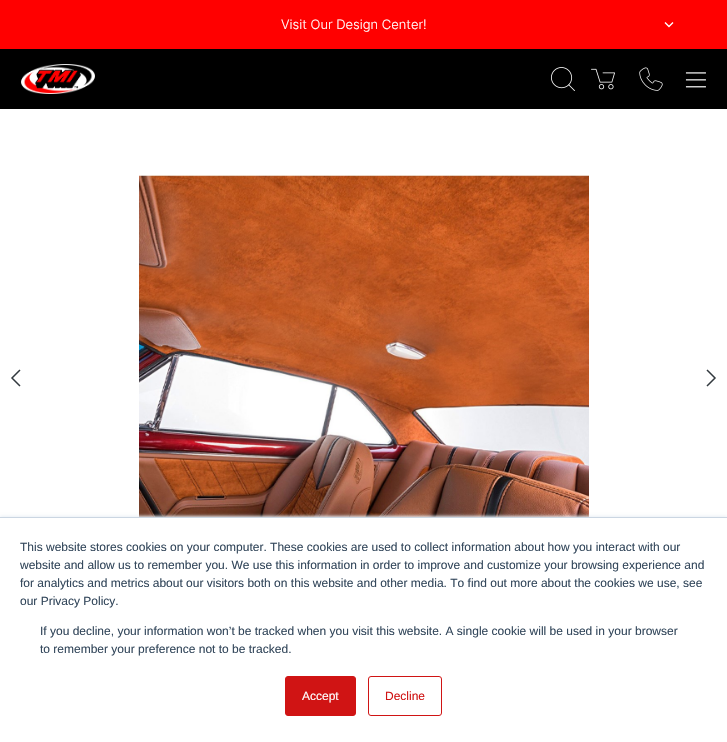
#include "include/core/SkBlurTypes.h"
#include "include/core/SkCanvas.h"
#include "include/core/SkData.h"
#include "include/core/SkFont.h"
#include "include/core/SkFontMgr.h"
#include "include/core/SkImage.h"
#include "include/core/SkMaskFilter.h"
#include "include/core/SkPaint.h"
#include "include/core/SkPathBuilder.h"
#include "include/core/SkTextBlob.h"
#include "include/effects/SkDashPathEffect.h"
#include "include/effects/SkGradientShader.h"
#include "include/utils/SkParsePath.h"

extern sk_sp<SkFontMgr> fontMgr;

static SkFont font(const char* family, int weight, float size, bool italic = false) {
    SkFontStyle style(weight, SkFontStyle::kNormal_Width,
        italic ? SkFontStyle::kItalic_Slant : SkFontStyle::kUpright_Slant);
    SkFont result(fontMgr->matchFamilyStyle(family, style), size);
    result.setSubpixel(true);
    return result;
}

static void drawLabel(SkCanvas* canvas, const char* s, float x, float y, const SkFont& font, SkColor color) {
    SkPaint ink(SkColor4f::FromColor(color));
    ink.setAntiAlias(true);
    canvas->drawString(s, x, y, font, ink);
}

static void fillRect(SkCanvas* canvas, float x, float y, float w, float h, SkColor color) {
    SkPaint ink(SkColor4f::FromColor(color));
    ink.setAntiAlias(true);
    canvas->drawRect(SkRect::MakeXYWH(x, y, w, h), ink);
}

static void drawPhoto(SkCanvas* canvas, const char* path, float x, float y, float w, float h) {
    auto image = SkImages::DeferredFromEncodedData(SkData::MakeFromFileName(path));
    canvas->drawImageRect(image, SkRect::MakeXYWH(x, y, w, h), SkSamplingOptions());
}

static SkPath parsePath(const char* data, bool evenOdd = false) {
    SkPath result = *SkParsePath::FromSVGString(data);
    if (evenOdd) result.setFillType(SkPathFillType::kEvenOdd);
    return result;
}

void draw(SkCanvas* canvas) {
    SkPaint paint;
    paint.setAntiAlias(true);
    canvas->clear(0xFFFFFFFF);
    fillRect(canvas, 0, 0, 727, 49, 0xFFFF0000);
    SkFont font1 = font("Inter", 300, 13);
    drawLabel(canvas, "Visit Our Design Center!", 281, 29, font1, 0xFFFFFFFF);
    paint.setStroke(true);
    paint.setStrokeWidth(1.4f);
    paint.setColor(0xFFFFFFFF);
    canvas->drawPath(parsePath("M665 22.5L669 26.5L673 22.5"), paint);
    fillRect(canvas, 0, 49, 727, 60, 0xFF000000);
    drawPhoto(canvas, "assets/img1.png", 21, 64, 74, 30);
    drawPhoto(canvas, "assets/img2.png", 551, 67, 24, 24);
    drawPhoto(canvas, "assets/img3.png", 591, 68, 24, 22);
    drawPhoto(canvas, "assets/img4.png", 639, 67, 24, 24);
    drawPhoto(canvas, "assets/img5.png", 685, 72, 21, 16);
    paint.setStrokeWidth(1.5f);
    paint.setColor(0xFF32393E);
    canvas->drawPath(parsePath("M20 386L12 378L20 370"), paint);
    drawPhoto(canvas, "assets/img6.png", 139, 175, 450, 342);
    canvas->drawPath(parsePath("M707 370L715 378L707 386"), paint);
    paint.setStroke(false);
    paint.setColor(0xFFEAF0F6);
    paint.setMaskFilter(SkMaskFilter::MakeBlur(kNormal_SkBlurStyle, 1.5f));
    canvas->drawRect(SkRect::MakeXYWH(0, 516, 727, 225), paint);
    paint.setMaskFilter(nullptr);
    fillRect(canvas, 0, 518, 727, 224, 0xFFFFFFFF);
    fillRect(canvas, 0, 517, 727, 1, 0xFFCBD6E2);
    SkFont font2 = font("Liberation Sans", 400, 12);
    drawLabel(canvas, "This website stores cookies on your computer. These cookies are used to collect information about how you interact with our", 20, 551, font2, 0xFF33475B);
    drawLabel(canvas, "website and allow us to remember you. We use this information in order to improve and customize your browsing experience and", 20, 569, font2, 0xFF33475B);
    drawLabel(canvas, "for analytics and metrics about our visitors both on this website and other media. To find out more about the cookies we use, see", 20, 587, font2, 0xFF33475B);
    drawLabel(canvas, "our Privacy Policy.", 20, 605, font2, 0xFF33475B);
    drawLabel(canvas, "If you decline, your information won’t be tracked when you visit this website. A single cookie will be used in your browser", 40, 635, font2, 0xFF33475B);
    drawLabel(canvas, "to remember your preference not to be tracked.", 40, 653, font2, 0xFF33475B);
    paint.setColor(0xFFD01414);
    canvas->drawRoundRect(SkRect::MakeXYWH(285.5f, 676.5f, 70, 39), 2.5f, 2.5f, paint);
    paint.setStroke(true);
    paint.setStrokeWidth(1);
    canvas->drawRoundRect(SkRect::MakeXYWH(285.5f, 676.5f, 70, 39), 2.5f, 2.5f, paint);
    drawLabel(canvas, "Accept", 302, 700, font2, 0xFFFFFFFF);
    canvas->drawRoundRect(SkRect::MakeXYWH(368.5f, 676.5f, 73, 39), 2.5f, 2.5f, paint);
    drawLabel(canvas, "Decline", 385, 700, font2, 0xFFD01414);
}
